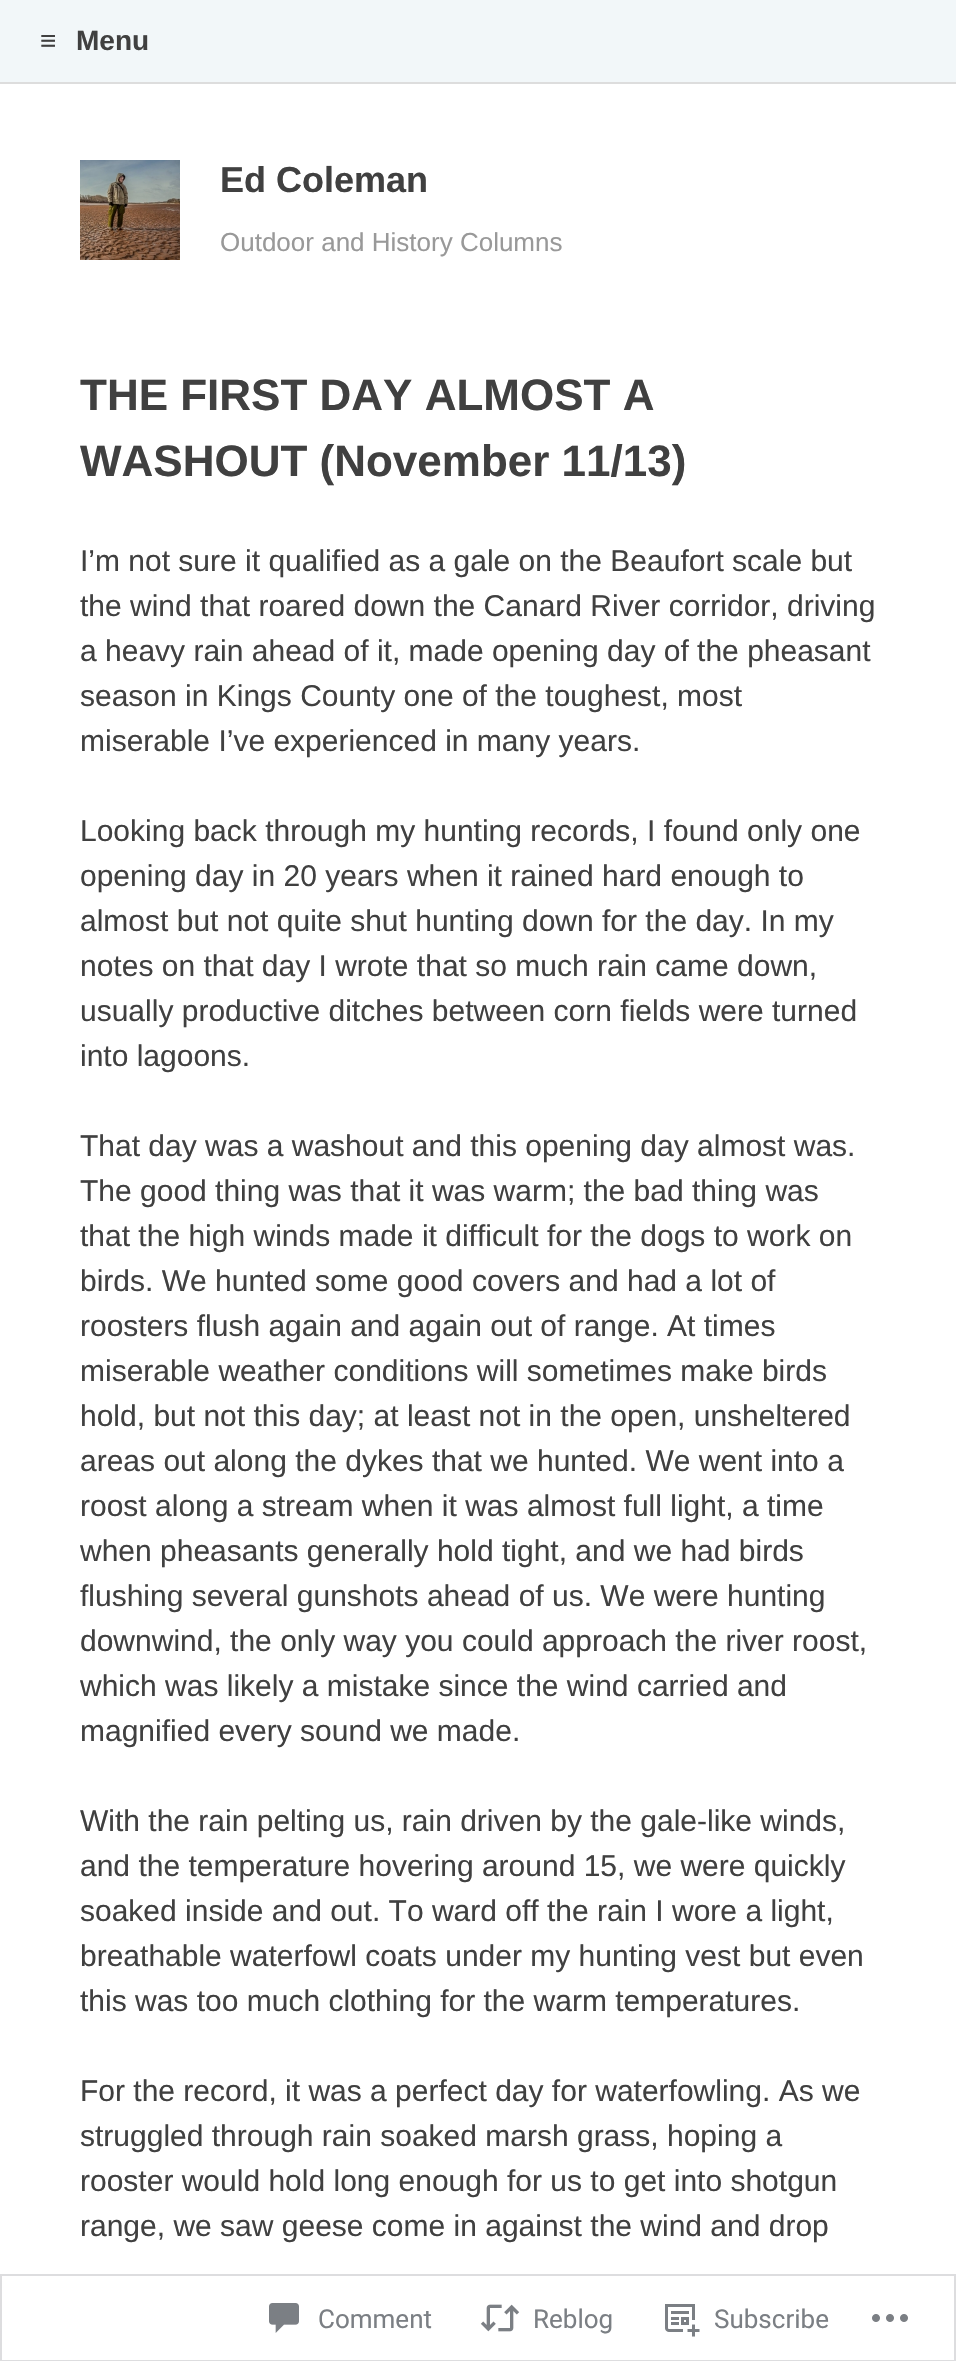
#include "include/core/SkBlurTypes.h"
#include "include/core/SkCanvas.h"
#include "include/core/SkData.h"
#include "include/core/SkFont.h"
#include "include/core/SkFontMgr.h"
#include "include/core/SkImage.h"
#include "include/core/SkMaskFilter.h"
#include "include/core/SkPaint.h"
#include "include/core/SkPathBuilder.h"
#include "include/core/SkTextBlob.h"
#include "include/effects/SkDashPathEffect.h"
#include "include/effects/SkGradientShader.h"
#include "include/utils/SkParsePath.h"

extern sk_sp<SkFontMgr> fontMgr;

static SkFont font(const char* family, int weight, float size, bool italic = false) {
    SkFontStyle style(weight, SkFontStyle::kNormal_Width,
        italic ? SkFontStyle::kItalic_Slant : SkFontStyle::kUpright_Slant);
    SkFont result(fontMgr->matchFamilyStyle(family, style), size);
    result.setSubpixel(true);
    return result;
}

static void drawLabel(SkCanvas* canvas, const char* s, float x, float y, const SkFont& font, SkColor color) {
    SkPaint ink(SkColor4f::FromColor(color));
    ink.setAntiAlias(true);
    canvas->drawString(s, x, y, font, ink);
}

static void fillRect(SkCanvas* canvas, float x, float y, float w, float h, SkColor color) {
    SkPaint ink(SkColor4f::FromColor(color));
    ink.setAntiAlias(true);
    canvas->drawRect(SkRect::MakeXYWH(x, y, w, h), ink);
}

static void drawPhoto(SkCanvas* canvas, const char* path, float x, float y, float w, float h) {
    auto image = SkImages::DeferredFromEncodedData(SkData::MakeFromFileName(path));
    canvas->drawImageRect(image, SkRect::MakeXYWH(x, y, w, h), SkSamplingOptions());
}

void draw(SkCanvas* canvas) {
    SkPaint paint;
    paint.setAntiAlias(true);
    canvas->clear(0xFFFFFFFF);
    fillRect(canvas, 0, 0, 956, 82, 0xFFF2F7F9);
    fillRect(canvas, 0, 82, 956, 2, 0xFFDDDDDD);
    SkFont font1 = font("Liberation Sans", 700, 28);
    drawLabel(canvas, "≡", 40, 50, font1, 0xFF404040);
    drawLabel(canvas, "Menu", 76, 50, font1, 0xFF404040);
    drawPhoto(canvas, "assets/img1.png", 80, 160, 100, 100);
    SkFont font2 = font("Liberation Sans", 700, 36);
    drawLabel(canvas, "Ed Coleman", 220, 192, font2, 0xFF404040);
    SkFont font3 = font("Liberation Sans", 400, 26);
    drawLabel(canvas, "Outdoor and History Columns", 220, 251, font3, 0xFF999999);
    SkFont font4 = font("Liberation Sans", 700, 44);
    drawLabel(canvas, "THE FIRST DAY ALMOST A", 80, 410, font4, 0xFF404040);
    drawLabel(canvas, "WASHOUT (November 11/13)", 80, 476, font4, 0xFF404040);
    SkFont font5 = font("Liberation Sans", 400, 30);
    drawLabel(canvas, "I’m not sure it qualified as a gale on the Beaufort scale but", 80, 571, font5, 0xFF404040);
    drawLabel(canvas, "the wind that roared down the Canard River corridor, driving", 80, 616, font5, 0xFF404040);
    drawLabel(canvas, "a heavy rain ahead of it, made opening day of the pheasant", 80, 661, font5, 0xFF404040);
    drawLabel(canvas, "season in Kings County one of the toughest, most", 80, 706, font5, 0xFF404040);
    drawLabel(canvas, "miserable I’ve experienced in many years.", 80, 751, font5, 0xFF404040);
    drawLabel(canvas, "Looking back through my hunting records, I found only one", 80, 841, font5, 0xFF404040);
    drawLabel(canvas, "opening day in 20 years when it rained hard enough to", 80, 886, font5, 0xFF404040);
    drawLabel(canvas, "almost but not quite shut hunting down for the day. In my", 80, 931, font5, 0xFF404040);
    drawLabel(canvas, "notes on that day I wrote that so much rain came down,", 80, 976, font5, 0xFF404040);
    drawLabel(canvas, "usually productive ditches between corn fields were turned", 80, 1021, font5, 0xFF404040);
    drawLabel(canvas, "into lagoons.", 80, 1066, font5, 0xFF404040);
    drawLabel(canvas, "That day was a washout and this opening day almost was.", 80, 1156, font5, 0xFF404040);
    drawLabel(canvas, "The good thing was that it was warm; the bad thing was", 80, 1201, font5, 0xFF404040);
    drawLabel(canvas, "that the high winds made it difficult for the dogs to work on", 80, 1246, font5, 0xFF404040);
    drawLabel(canvas, "birds. We hunted some good covers and had a lot of", 80, 1291, font5, 0xFF404040);
    drawLabel(canvas, "roosters flush again and again out of range. At times", 80, 1336, font5, 0xFF404040);
    drawLabel(canvas, "miserable weather conditions will sometimes make birds", 80, 1381, font5, 0xFF404040);
    drawLabel(canvas, "hold, but not this day; at least not in the open, unsheltered", 80, 1426, font5, 0xFF404040);
    drawLabel(canvas, "areas out along the dykes that we hunted. We went into a", 80, 1471, font5, 0xFF404040);
    drawLabel(canvas, "roost along a stream when it was almost full light, a time", 80, 1516, font5, 0xFF404040);
    drawLabel(canvas, "when pheasants generally hold tight, and we had birds", 80, 1561, font5, 0xFF404040);
    drawLabel(canvas, "flushing several gunshots ahead of us. We were hunting", 80, 1606, font5, 0xFF404040);
    drawLabel(canvas, "downwind, the only way you could approach the river roost,", 80, 1651, font5, 0xFF404040);
    drawLabel(canvas, "which was likely a mistake since the wind carried and", 80, 1696, font5, 0xFF404040);
    drawLabel(canvas, "magnified every sound we made.", 80, 1741, font5, 0xFF404040);
    drawLabel(canvas, "With the rain pelting us, rain driven by the gale-like winds,", 80, 1831, font5, 0xFF404040);
    drawLabel(canvas, "and the temperature hovering around 15, we were quickly", 80, 1876, font5, 0xFF404040);
    drawLabel(canvas, "soaked inside and out. To ward off the rain I wore a light,", 80, 1921, font5, 0xFF404040);
    drawLabel(canvas, "breathable waterfowl coats under my hunting vest but even", 80, 1966, font5, 0xFF404040);
    drawLabel(canvas, "this was too much clothing for the warm temperatures.", 80, 2011, font5, 0xFF404040);
    drawLabel(canvas, "For the record, it was a perfect day for waterfowling. As we", 80, 2101, font5, 0xFF404040);
    drawLabel(canvas, "struggled through rain soaked marsh grass, hoping a", 80, 2146, font5, 0xFF404040);
    drawLabel(canvas, "rooster would hold long enough for us to get into shotgun", 80, 2191, font5, 0xFF404040);
    drawLabel(canvas, "range, we saw geese come in against the wind and drop", 80, 2236, font5, 0xFF404040);
    paint.setStroke(true);
    paint.setStrokeWidth(2);
    paint.setColor(0xFADCDCDE);
    canvas->drawRect(SkRect::MakeXYWH(1, 2275, 954, 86), paint);
    drawPhoto(canvas, "assets/img2.png", 269, 2303, 30, 30);
    SkFont font6 = font("Roboto", 400, 26);
    drawLabel(canvas, "Comment", 318, 2328, font6, 0xFF7B7F84);
    drawPhoto(canvas, "assets/img3.png", 480, 2304, 40, 28);
    drawLabel(canvas, "Reblog", 533, 2328, font6, 0xFF7B7F84);
    drawPhoto(canvas, "assets/img4.png", 665, 2304, 35, 33);
    drawLabel(canvas, "Subscribe", 714, 2328, font6, 0xFF7B7F84);
    drawPhoto(canvas, "assets/img5.png", 872, 2314, 36, 8);
}
